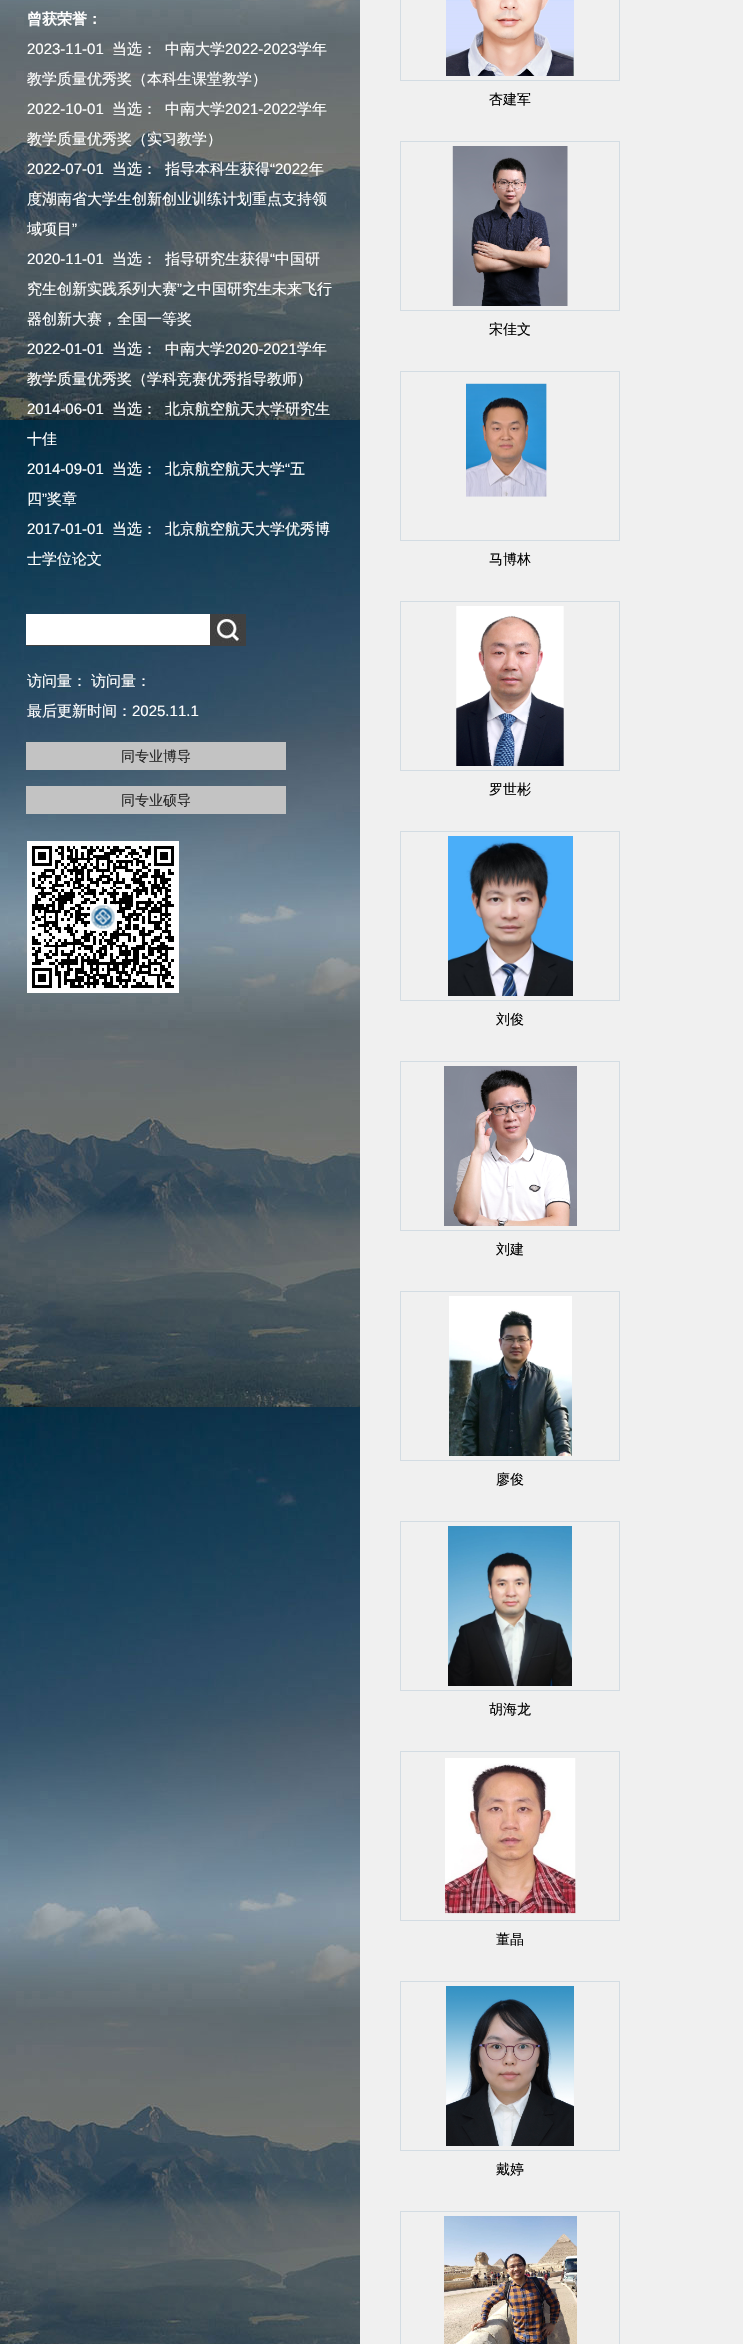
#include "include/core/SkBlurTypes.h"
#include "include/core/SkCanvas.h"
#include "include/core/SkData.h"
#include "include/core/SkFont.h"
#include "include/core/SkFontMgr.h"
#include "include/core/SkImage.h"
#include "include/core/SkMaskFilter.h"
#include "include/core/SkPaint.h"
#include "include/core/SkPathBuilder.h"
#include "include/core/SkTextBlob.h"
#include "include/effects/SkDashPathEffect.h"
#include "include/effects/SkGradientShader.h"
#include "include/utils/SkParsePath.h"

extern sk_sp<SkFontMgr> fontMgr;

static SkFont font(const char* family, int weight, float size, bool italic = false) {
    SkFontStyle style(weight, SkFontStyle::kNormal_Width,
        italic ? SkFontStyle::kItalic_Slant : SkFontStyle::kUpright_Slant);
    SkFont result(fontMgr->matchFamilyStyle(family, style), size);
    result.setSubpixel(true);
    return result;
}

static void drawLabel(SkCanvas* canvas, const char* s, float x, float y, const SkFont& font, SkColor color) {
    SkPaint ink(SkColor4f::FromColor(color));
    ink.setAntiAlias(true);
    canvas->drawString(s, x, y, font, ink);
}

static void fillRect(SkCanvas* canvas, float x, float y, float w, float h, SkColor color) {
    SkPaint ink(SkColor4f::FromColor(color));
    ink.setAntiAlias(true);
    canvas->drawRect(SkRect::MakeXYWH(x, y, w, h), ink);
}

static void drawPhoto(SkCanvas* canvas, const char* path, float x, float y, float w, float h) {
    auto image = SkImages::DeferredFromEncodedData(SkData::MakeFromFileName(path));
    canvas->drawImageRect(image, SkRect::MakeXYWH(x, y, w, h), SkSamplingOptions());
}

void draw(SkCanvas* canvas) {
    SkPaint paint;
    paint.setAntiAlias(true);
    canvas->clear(0xFFF0F0F0);
    drawPhoto(canvas, "assets/img1.png", 0, 0, 360, 2344);
    SkFont font1 = font("WenQuanYi Zen Hei", 700, 15);
    drawLabel(canvas, "曾获荣誉：", 27, 24, font1, 0xFFFFFFFF);
    SkFont font2 = font("Liberation Sans", 400, 15);
    drawLabel(canvas, "2023-11-01", 27, 54, font2, 0xFFFFFFFF);
    SkFont font3 = font("WenQuanYi Zen Hei", 500, 15);
    drawLabel(canvas, "当选：", 112, 54, font3, 0xFFFFFFFF);
    drawLabel(canvas, "中南大学", 165, 54, font3, 0xFFFFFFFF);
    drawLabel(canvas, "2022-2023", 225, 54, font2, 0xFFFFFFFF);
    drawLabel(canvas, "学年", 297, 54, font3, 0xFFFFFFFF);
    drawLabel(canvas, "教学质量优秀奖（本科生课堂教学）", 27, 84, font3, 0xFFFFFFFF);
    drawLabel(canvas, "2022-10-01", 27, 114, font2, 0xFFFFFFFF);
    drawLabel(canvas, "当选：", 112, 114, font3, 0xFFFFFFFF);
    drawLabel(canvas, "中南大学", 165, 114, font3, 0xFFFFFFFF);
    drawLabel(canvas, "2021-2022", 225, 114, font2, 0xFFFFFFFF);
    drawLabel(canvas, "学年", 297, 114, font3, 0xFFFFFFFF);
    drawLabel(canvas, "教学质量优秀奖（实习教学）", 27, 144, font3, 0xFFFFFFFF);
    drawLabel(canvas, "2022-07-01", 27, 174, font2, 0xFFFFFFFF);
    drawLabel(canvas, "当选：", 112, 174, font3, 0xFFFFFFFF);
    drawLabel(canvas, "指导本科生获得", 165, 174, font3, 0xFFFFFFFF);
    drawLabel(canvas, "“2022", 270, 174, font2, 0xFFFFFFFF);
    drawLabel(canvas, "年", 309, 174, font3, 0xFFFFFFFF);
    drawLabel(canvas, "度湖南省大学生创新创业训练计划重点支持领", 27, 204, font3, 0xFFFFFFFF);
    drawLabel(canvas, "域项目", 27, 234, font3, 0xFFFFFFFF);
    drawLabel(canvas, "”", 72, 234, font2, 0xFFFFFFFF);
    drawLabel(canvas, "2020-11-01", 27, 264, font2, 0xFFFFFFFF);
    drawLabel(canvas, "当选：", 112, 264, font3, 0xFFFFFFFF);
    drawLabel(canvas, "指导研究生获得", 165, 264, font3, 0xFFFFFFFF);
    drawLabel(canvas, "“", 270, 264, font2, 0xFFFFFFFF);
    drawLabel(canvas, "中国研", 275, 264, font3, 0xFFFFFFFF);
    drawLabel(canvas, "究生创新实践系列大赛", 27, 294, font3, 0xFFFFFFFF);
    drawLabel(canvas, "”", 177, 294, font2, 0xFFFFFFFF);
    drawLabel(canvas, "之中国研究生未来飞行", 182, 294, font3, 0xFFFFFFFF);
    drawLabel(canvas, "器创新大赛，全国一等奖", 27, 324, font3, 0xFFFFFFFF);
    drawLabel(canvas, "2022-01-01", 27, 354, font2, 0xFFFFFFFF);
    drawLabel(canvas, "当选：", 112, 354, font3, 0xFFFFFFFF);
    drawLabel(canvas, "中南大学", 165, 354, font3, 0xFFFFFFFF);
    drawLabel(canvas, "2020-2021", 225, 354, font2, 0xFFFFFFFF);
    drawLabel(canvas, "学年", 297, 354, font3, 0xFFFFFFFF);
    drawLabel(canvas, "教学质量优秀奖（学科竞赛优秀指导教师）", 27, 384, font3, 0xFFFFFFFF);
    drawLabel(canvas, "2014-06-01", 27, 414, font2, 0xFFFFFFFF);
    drawLabel(canvas, "当选：", 112, 414, font3, 0xFFFFFFFF);
    drawLabel(canvas, "北京航空航天大学研究生", 165, 414, font3, 0xFFFFFFFF);
    drawLabel(canvas, "十佳", 27, 444, font3, 0xFFFFFFFF);
    drawLabel(canvas, "2014-09-01", 27, 474, font2, 0xFFFFFFFF);
    drawLabel(canvas, "当选：", 112, 474, font3, 0xFFFFFFFF);
    drawLabel(canvas, "北京航空航天大学", 165, 474, font3, 0xFFFFFFFF);
    drawLabel(canvas, "“", 285, 474, font2, 0xFFFFFFFF);
    drawLabel(canvas, "五", 290, 474, font3, 0xFFFFFFFF);
    drawLabel(canvas, "四", 27, 504, font3, 0xFFFFFFFF);
    drawLabel(canvas, "”", 42, 504, font2, 0xFFFFFFFF);
    drawLabel(canvas, "奖章", 47, 504, font3, 0xFFFFFFFF);
    drawLabel(canvas, "2017-01-01", 27, 534, font2, 0xFFFFFFFF);
    drawLabel(canvas, "当选：", 112, 534, font3, 0xFFFFFFFF);
    drawLabel(canvas, "北京航空航天大学优秀博", 165, 534, font3, 0xFFFFFFFF);
    drawLabel(canvas, "士学位论文", 27, 564, font3, 0xFFFFFFFF);
    fillRect(canvas, 26, 614, 220, 32, 0xFF404040);
    fillRect(canvas, 26, 614, 184, 31, 0xFFFFFFFF);
    drawPhoto(canvas, "assets/img2.png", 213, 614, 28, 29);
    drawLabel(canvas, "访问量：", 27, 686, font3, 0xFFFFFFFF);
    drawLabel(canvas, "访问量：", 91, 686, font3, 0xFFFFFFFF);
    drawLabel(canvas, "最后更新时间：", 27, 716, font3, 0xFFFFFFFF);
    drawLabel(canvas, "2025.11.1", 132, 716, font2, 0xFFFFFFFF);
    fillRect(canvas, 26, 742, 260, 28, 0xFFC3C3C3);
    SkFont font4 = font("WenQuanYi Zen Hei", 500, 14);
    drawLabel(canvas, "同专业博导", 121, 761, font4, 0xFF262626);
    fillRect(canvas, 26, 786, 260, 28, 0xFFC3C3C3);
    drawLabel(canvas, "同专业硕导", 121, 805, font4, 0xFF262626);
    fillRect(canvas, 27, 841, 152, 152, 0xFFFFFFFF);
    drawPhoto(canvas, "assets/img3.png", 32, 846, 142, 142);
    paint.setStroke(true);
    paint.setStrokeWidth(1);
    paint.setColor(0xFFD3DCE3);
    canvas->drawRect(SkRect::MakeXYWH(400.5f, -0.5f, 219, 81), paint);
    drawPhoto(canvas, "assets/img4.png", 446, 0, 128, 76);
    drawLabel(canvas, "杏建军", 489, 104, font4, 0xFF000000);
    canvas->drawRect(SkRect::MakeXYWH(400.5f, 141.5f, 219, 169), paint);
    drawPhoto(canvas, "assets/img5.png", 452, 146, 116, 160);
    drawLabel(canvas, "宋佳文", 489, 334, font4, 0xFF000000);
    canvas->drawRect(SkRect::MakeXYWH(400.5f, 371.5f, 219, 169), paint);
    drawPhoto(canvas, "assets/img6.png", 466, 383, 81, 114);
    drawLabel(canvas, "马博林", 489, 564, font4, 0xFF000000);
    canvas->drawRect(SkRect::MakeXYWH(400.5f, 601.5f, 219, 169), paint);
    drawPhoto(canvas, "assets/img7.png", 456, 606, 108, 160);
    drawLabel(canvas, "罗世彬", 489, 794, font4, 0xFF000000);
    canvas->drawRect(SkRect::MakeXYWH(400.5f, 831.5f, 219, 169), paint);
    drawPhoto(canvas, "assets/img8.png", 448, 836, 125, 160);
    drawLabel(canvas, "刘俊", 496, 1024, font4, 0xFF000000);
    canvas->drawRect(SkRect::MakeXYWH(400.5f, 1061.5f, 219, 169), paint);
    drawPhoto(canvas, "assets/img9.png", 444, 1066, 133, 160);
    drawLabel(canvas, "刘建", 496, 1254, font4, 0xFF000000);
    canvas->drawRect(SkRect::MakeXYWH(400.5f, 1291.5f, 219, 169), paint);
    drawPhoto(canvas, "assets/img10.png", 449, 1296, 123, 160);
    drawLabel(canvas, "廖俊", 496, 1484, font4, 0xFF000000);
    canvas->drawRect(SkRect::MakeXYWH(400.5f, 1521.5f, 219, 169), paint);
    drawPhoto(canvas, "assets/img11.png", 448, 1526, 124, 160);
    drawLabel(canvas, "胡海龙", 489, 1714, font4, 0xFF000000);
    canvas->drawRect(SkRect::MakeXYWH(400.5f, 1751.5f, 219, 169), paint);
    drawPhoto(canvas, "assets/img12.png", 445, 1758, 131, 156);
    drawLabel(canvas, "董晶", 496, 1944, font4, 0xFF000000);
    canvas->drawRect(SkRect::MakeXYWH(400.5f, 1981.5f, 219, 169), paint);
    drawPhoto(canvas, "assets/img13.png", 446, 1986, 128, 160);
    drawLabel(canvas, "戴婷", 496, 2174, font4, 0xFF000000);
    canvas->drawRect(SkRect::MakeXYWH(400.5f, 2211.5f, 219, 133), paint);
    drawPhoto(canvas, "assets/img14.png", 444, 2216, 133, 128);
}
